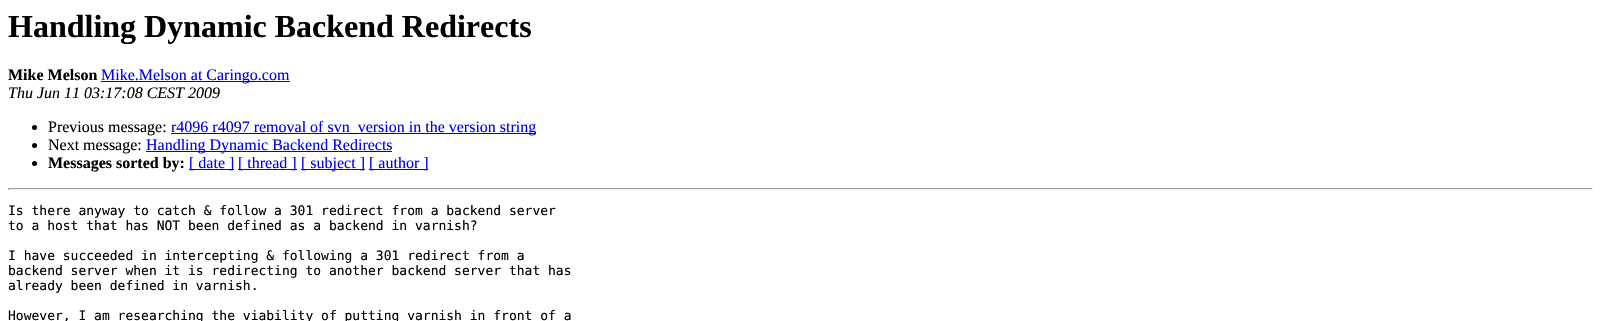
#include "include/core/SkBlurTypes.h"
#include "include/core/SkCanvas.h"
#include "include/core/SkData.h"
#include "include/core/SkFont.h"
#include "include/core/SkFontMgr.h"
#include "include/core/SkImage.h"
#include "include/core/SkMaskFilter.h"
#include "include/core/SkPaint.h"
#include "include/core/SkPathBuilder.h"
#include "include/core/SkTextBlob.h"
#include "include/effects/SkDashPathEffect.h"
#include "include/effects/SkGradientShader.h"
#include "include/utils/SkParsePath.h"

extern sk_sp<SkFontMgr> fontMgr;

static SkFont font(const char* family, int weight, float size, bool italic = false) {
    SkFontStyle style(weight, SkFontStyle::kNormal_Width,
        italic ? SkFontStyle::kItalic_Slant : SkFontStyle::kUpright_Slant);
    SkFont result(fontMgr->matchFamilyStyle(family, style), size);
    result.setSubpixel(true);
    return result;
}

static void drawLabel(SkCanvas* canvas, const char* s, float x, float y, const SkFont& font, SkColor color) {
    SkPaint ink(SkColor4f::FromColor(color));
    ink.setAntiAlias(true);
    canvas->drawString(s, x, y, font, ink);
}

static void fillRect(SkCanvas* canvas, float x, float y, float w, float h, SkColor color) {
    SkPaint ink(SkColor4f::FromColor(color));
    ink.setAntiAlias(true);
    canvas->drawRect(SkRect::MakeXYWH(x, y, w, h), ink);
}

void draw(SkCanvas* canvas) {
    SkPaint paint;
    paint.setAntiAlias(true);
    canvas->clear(0xFFFFFFFF);
    SkFont font1 = font("Liberation Serif", 700, 32);
    drawLabel(canvas, "Handling Dynamic Backend Redirects", 8, 37, font1, 0xFF000000);
    SkFont font2 = font("Liberation Serif", 700, 16);
    drawLabel(canvas, "Mike Melson", 8, 80, font2, 0xFF000000);
    fillRect(canvas, 101, 81, 189, 1, 0xFF0000EE);
    SkFont font3 = font("Liberation Serif", 400, 16);
    drawLabel(canvas, "Mike.Melson at Caringo.com", 101, 80, font3, 0xFF0000EE);
    SkFont font4 = font("Liberation Serif", 400, 16, true);
    drawLabel(canvas, "Thu Jun 11 03:17:08 CEST 2009", 8, 98, font4, 0xFF000000);
    paint.setColor(0xFF000000);
    canvas->drawCircle(34.5f, 127.5f, 2.5f, paint);
    drawLabel(canvas, "Previous message:", 48, 132, font3, 0xFF000000);
    fillRect(canvas, 171, 133, 365, 1, 0xFF0000EE);
    drawLabel(canvas, "r4096 r4097 removal of svn_version in the version string", 171, 132, font3, 0xFF0000EE);
    canvas->drawCircle(34.5f, 145.5f, 2.5f, paint);
    drawLabel(canvas, "Next message:", 48, 150, font3, 0xFF000000);
    fillRect(canvas, 146, 151, 246, 1, 0xFF0000EE);
    drawLabel(canvas, "Handling Dynamic Backend Redirects", 146, 150, font3, 0xFF0000EE);
    canvas->drawCircle(34.5f, 163.5f, 2.5f, paint);
    drawLabel(canvas, "Messages sorted by:", 48, 168, font2, 0xFF000000);
    fillRect(canvas, 189, 169, 45, 1, 0xFF0000EE);
    drawLabel(canvas, "[ date ]", 189, 168, font3, 0xFF0000EE);
    fillRect(canvas, 238, 169, 59, 1, 0xFF0000EE);
    drawLabel(canvas, "[ thread ]", 238, 168, font3, 0xFF0000EE);
    fillRect(canvas, 301, 169, 64, 1, 0xFF0000EE);
    drawLabel(canvas, "[ subject ]", 301, 168, font3, 0xFF0000EE);
    fillRect(canvas, 369, 169, 59, 1, 0xFF0000EE);
    drawLabel(canvas, "[ author ]", 369, 168, font3, 0xFF0000EE);
    fillRect(canvas, 8, 188, 1585, 1, 0xFF9F9F9F);
    fillRect(canvas, 1592, 188, 1, 2, 0xFFEEEEEE);
    fillRect(canvas, 8, 189, 1585, 1, 0xFFEEEEEE);
    fillRect(canvas, 8, 188, 1, 2, 0xFF9F9F9F);
    SkFont font5 = font("DejaVu Sans Mono", 400, 13);
    drawLabel(canvas, "Is there anyway to catch & follow a 301 redirect from a backend server", 8, 215, font5, 0xFF000000);
    drawLabel(canvas, "to a host that has NOT been defined as a backend in varnish?", 8, 230, font5, 0xFF000000);
    drawLabel(canvas, "I have succeeded in intercepting & following a 301 redirect from a", 8, 260, font5, 0xFF000000);
    drawLabel(canvas, "backend server when it is redirecting to another backend server that has", 8, 275, font5, 0xFF000000);
    drawLabel(canvas, "already been defined in varnish.", 8, 290, font5, 0xFF000000);
    drawLabel(canvas, "However, I am researching the viability of putting varnish in front of a", 8, 320, font5, 0xFF000000);
}
